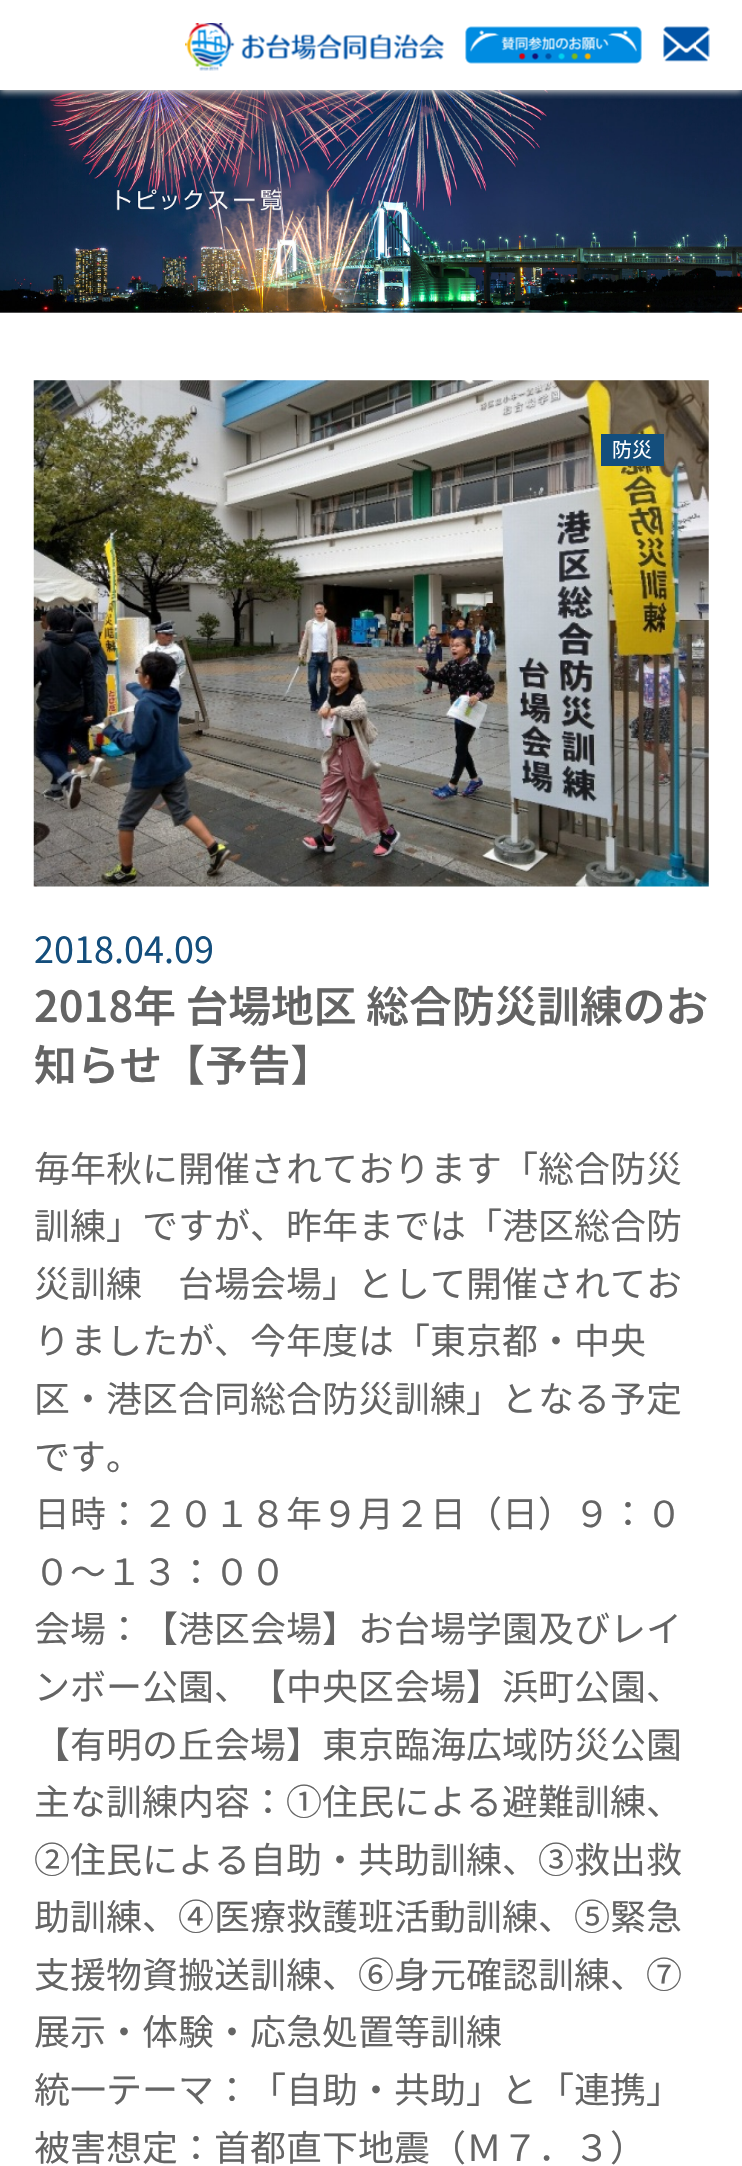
#include "include/core/SkBlurTypes.h"
#include "include/core/SkCanvas.h"
#include "include/core/SkData.h"
#include "include/core/SkFont.h"
#include "include/core/SkFontMgr.h"
#include "include/core/SkImage.h"
#include "include/core/SkMaskFilter.h"
#include "include/core/SkPaint.h"
#include "include/core/SkPathBuilder.h"
#include "include/core/SkTextBlob.h"
#include "include/effects/SkDashPathEffect.h"
#include "include/effects/SkGradientShader.h"
#include "include/utils/SkParsePath.h"

extern sk_sp<SkFontMgr> fontMgr;

static SkFont font(const char* family, int weight, float size, bool italic = false) {
    SkFontStyle style(weight, SkFontStyle::kNormal_Width,
        italic ? SkFontStyle::kItalic_Slant : SkFontStyle::kUpright_Slant);
    SkFont result(fontMgr->matchFamilyStyle(family, style), size);
    result.setSubpixel(true);
    return result;
}

static void drawLabel(SkCanvas* canvas, const char* s, float x, float y, const SkFont& font, SkColor color) {
    SkPaint ink(SkColor4f::FromColor(color));
    ink.setAntiAlias(true);
    canvas->drawString(s, x, y, font, ink);
}

static void fillRect(SkCanvas* canvas, float x, float y, float w, float h, SkColor color) {
    SkPaint ink(SkColor4f::FromColor(color));
    ink.setAntiAlias(true);
    canvas->drawRect(SkRect::MakeXYWH(x, y, w, h), ink);
}

static void drawPhoto(SkCanvas* canvas, const char* path, float x, float y, float w, float h) {
    auto image = SkImages::DeferredFromEncodedData(SkData::MakeFromFileName(path));
    canvas->drawImageRect(image, SkRect::MakeXYWH(x, y, w, h), SkSamplingOptions());
}

void draw(SkCanvas* canvas) {
    SkPaint paint;
    paint.setAntiAlias(true);
    canvas->clear(0xFFFFFFFF);
    drawPhoto(canvas, "assets/img4.png", 0, 90, 742, 223);
    canvas->save();
    canvas->clipRect(SkRect::MakeXYWH(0, 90, 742, 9));
    paint.setColor(0xFFCCCCCC);
    paint.setMaskFilter(SkMaskFilter::MakeBlur(kNormal_SkBlurStyle, 3.5f));
    canvas->drawRect(SkRect::MakeXYWH(0, 2, 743, 90), paint);
    paint.setMaskFilter(nullptr);
    canvas->restore();
    drawPhoto(canvas, "assets/img1.png", 185, 23, 259, 48);
    drawPhoto(canvas, "assets/img2.png", 465, 26, 177, 38);
    drawPhoto(canvas, "assets/img3.png", 663, 26, 47, 36);
    drawPhoto(canvas, "assets/img5.png", 33, 380, 676, 507);
    fillRect(canvas, 601, 434, 63, 32, 0xFF144E7C);
    SkFont font1 = font("Noto Sans JP", 400, 20);
    drawLabel(canvas, "防災", 612, 457, font1, 0xFFFFFFFF);
    SkFont font2 = font("Noto Sans JP", 400, 36);
    drawLabel(canvas, "2018.04.09", 34, 963, font2, 0xFF144E7C);
    SkFont font3 = font("Noto Sans JP", 600, 42.75f);
    drawLabel(canvas, "2018年 台場地区 総合防災訓練のお", 34, 1022, font3, 0xFF646464);
    drawLabel(canvas, "知らせ【予告】", 34, 1081, font3, 0xFF646464);
    drawLabel(canvas, "毎年秋に開催されております「総合防災", 34, 1182, font2, 0xFF646464);
    drawLabel(canvas, "訓練」ですが、昨年までは「港区総合防", 34, 1239, font2, 0xFF646464);
    drawLabel(canvas, "災訓練　台場会場」として開催されてお", 34, 1297, font2, 0xFF646464);
    drawLabel(canvas, "りましたが、今年度は「東京都・中央", 34, 1354, font2, 0xFF646464);
    drawLabel(canvas, "区・港区合同総合防災訓練」となる予定", 34, 1412, font2, 0xFF646464);
    drawLabel(canvas, "です。", 34, 1470, font2, 0xFF646464);
    drawLabel(canvas, "日時：２０１８年９月２日（日）９：０", 34, 1527, font2, 0xFF646464);
    drawLabel(canvas, "０", 34, 1585, font2, 0xFF646464);
    SkFont font4 = font("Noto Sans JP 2", 400, 36);
    drawLabel(canvas, "～", 70, 1585, font4, 0xFF646464);
    drawLabel(canvas, "１３：００", 106, 1585, font2, 0xFF646464);
    drawLabel(canvas, "会場：【港区会場】お台場学園及びレイ", 34, 1642, font2, 0xFF646464);
    drawLabel(canvas, "ンボー公園、【中央区会場】浜町公園、", 34, 1700, font2, 0xFF646464);
    drawLabel(canvas, "【有明の丘会場】東京臨海広域防災公園", 34, 1758, font2, 0xFF646464);
    drawLabel(canvas, "主な訓練内容：", 34, 1815, font2, 0xFF646464);
    drawLabel(canvas, "➀", 286, 1815, font4, 0xFF646464);
    drawLabel(canvas, "住民による避難訓練、", 322, 1815, font2, 0xFF646464);
    drawLabel(canvas, "②", 34, 1873, font4, 0xFF646464);
    drawLabel(canvas, "住民による自助・共助訓練、", 70, 1873, font2, 0xFF646464);
    drawLabel(canvas, "③", 538, 1873, font4, 0xFF646464);
    drawLabel(canvas, "救出救", 574, 1873, font2, 0xFF646464);
    drawLabel(canvas, "助訓練、", 34, 1930, font2, 0xFF646464);
    drawLabel(canvas, "④", 178, 1930, font4, 0xFF646464);
    drawLabel(canvas, "医療救護班活動訓練、", 214, 1930, font2, 0xFF646464);
    drawLabel(canvas, "➄", 574, 1930, font4, 0xFF646464);
    drawLabel(canvas, "緊急", 610, 1930, font2, 0xFF646464);
    drawLabel(canvas, "支援物資搬送訓練、", 34, 1988, font2, 0xFF646464);
    drawLabel(canvas, "⑥", 358, 1988, font4, 0xFF646464);
    drawLabel(canvas, "身元確認訓練、", 394, 1988, font2, 0xFF646464);
    drawLabel(canvas, "⑦", 646, 1988, font4, 0xFF646464);
    drawLabel(canvas, "展示・体験・応急処置等訓練", 34, 2045, font2, 0xFF646464);
    drawLabel(canvas, "統一テーマ：「自助・共助」と「連携」", 34, 2103, font2, 0xFF646464);
    drawLabel(canvas, "被害想定：首都直下地震（Ｍ７．３）", 34, 2161, font2, 0xFF646464);
}
